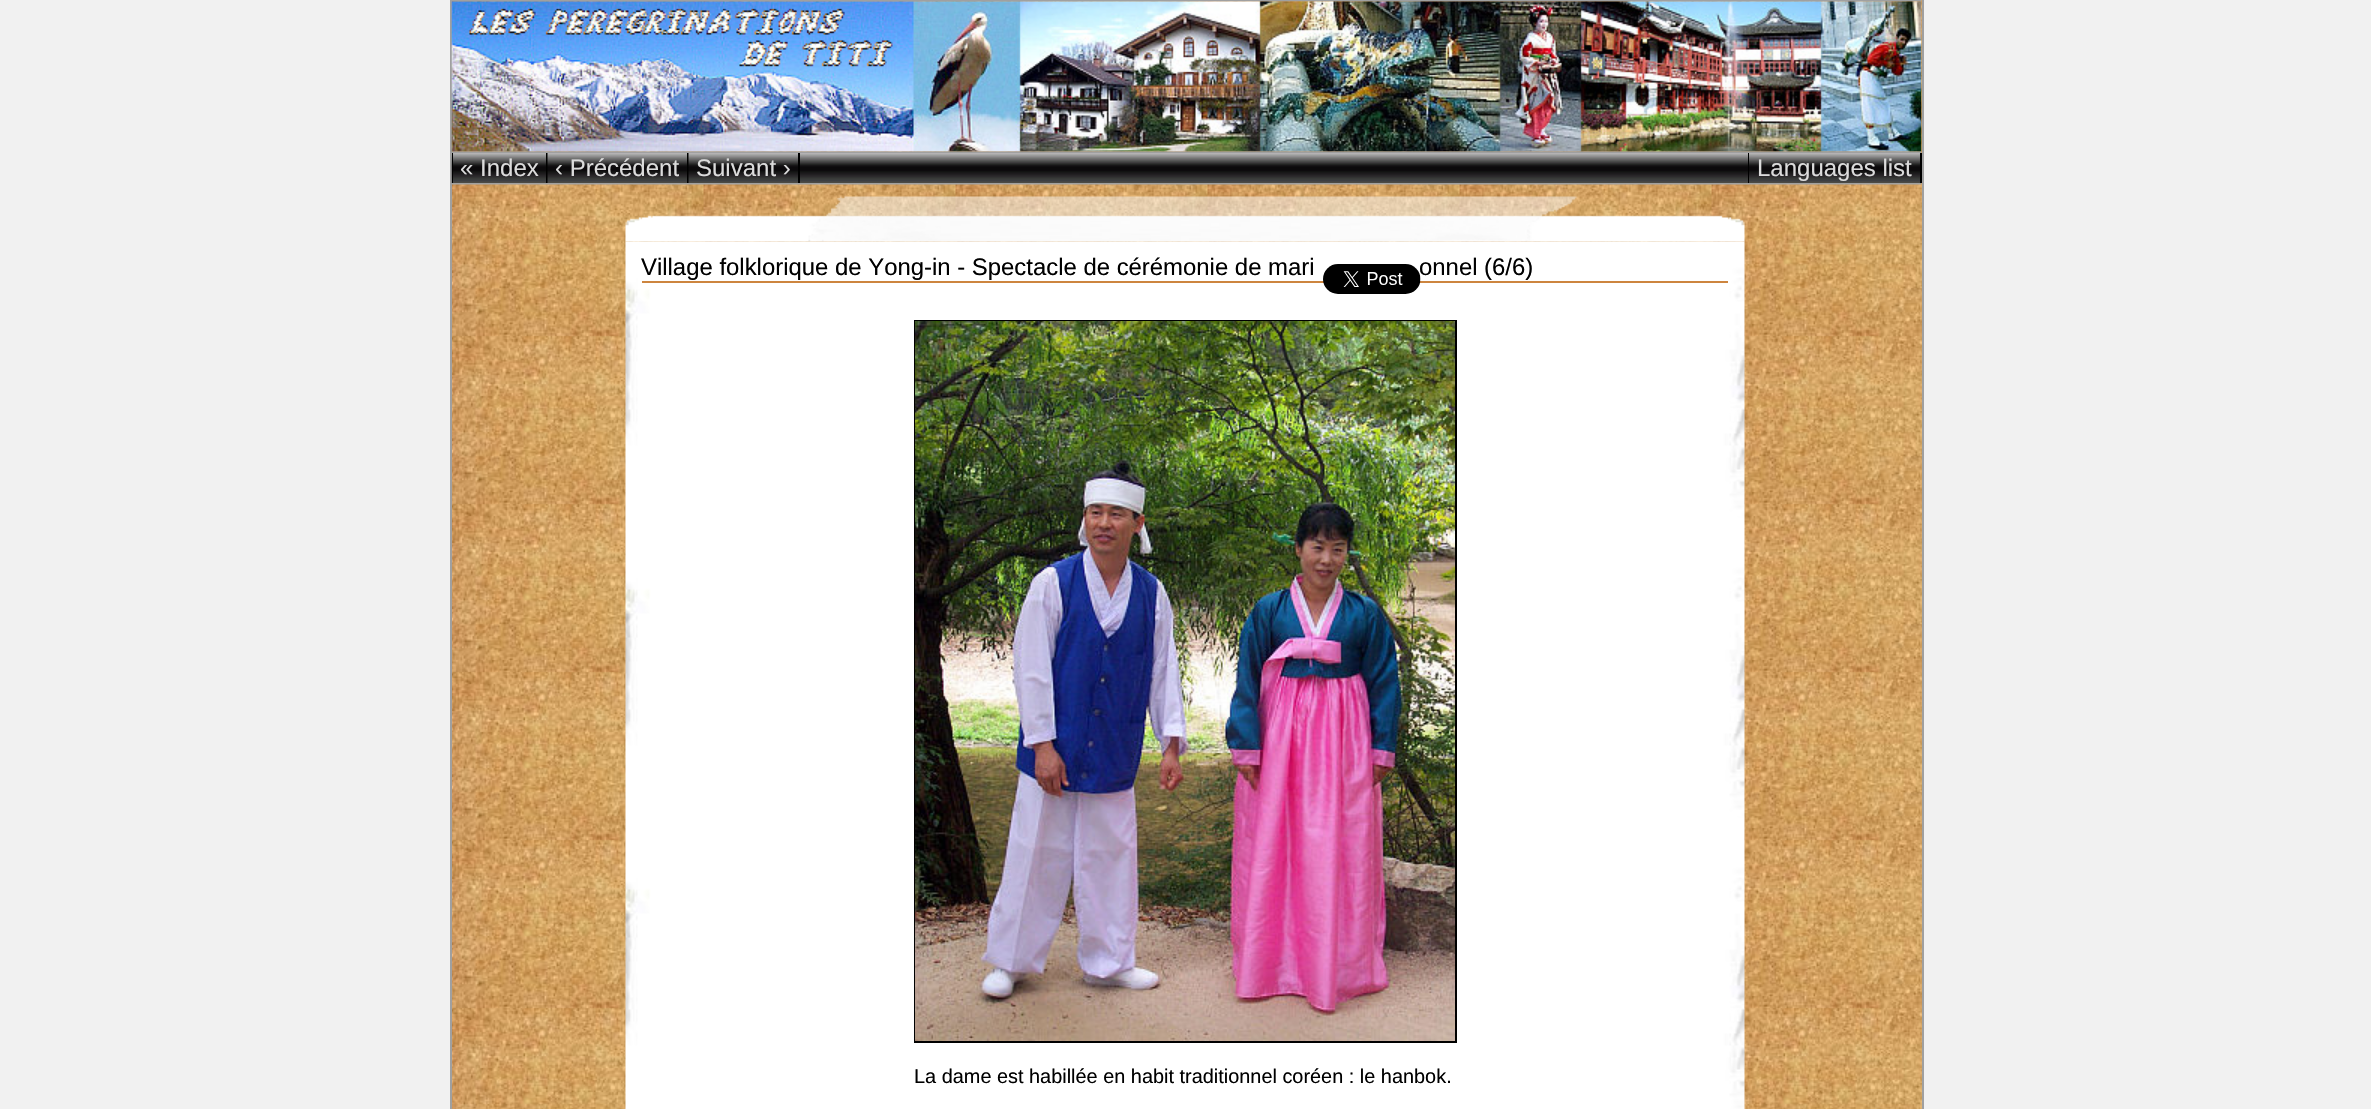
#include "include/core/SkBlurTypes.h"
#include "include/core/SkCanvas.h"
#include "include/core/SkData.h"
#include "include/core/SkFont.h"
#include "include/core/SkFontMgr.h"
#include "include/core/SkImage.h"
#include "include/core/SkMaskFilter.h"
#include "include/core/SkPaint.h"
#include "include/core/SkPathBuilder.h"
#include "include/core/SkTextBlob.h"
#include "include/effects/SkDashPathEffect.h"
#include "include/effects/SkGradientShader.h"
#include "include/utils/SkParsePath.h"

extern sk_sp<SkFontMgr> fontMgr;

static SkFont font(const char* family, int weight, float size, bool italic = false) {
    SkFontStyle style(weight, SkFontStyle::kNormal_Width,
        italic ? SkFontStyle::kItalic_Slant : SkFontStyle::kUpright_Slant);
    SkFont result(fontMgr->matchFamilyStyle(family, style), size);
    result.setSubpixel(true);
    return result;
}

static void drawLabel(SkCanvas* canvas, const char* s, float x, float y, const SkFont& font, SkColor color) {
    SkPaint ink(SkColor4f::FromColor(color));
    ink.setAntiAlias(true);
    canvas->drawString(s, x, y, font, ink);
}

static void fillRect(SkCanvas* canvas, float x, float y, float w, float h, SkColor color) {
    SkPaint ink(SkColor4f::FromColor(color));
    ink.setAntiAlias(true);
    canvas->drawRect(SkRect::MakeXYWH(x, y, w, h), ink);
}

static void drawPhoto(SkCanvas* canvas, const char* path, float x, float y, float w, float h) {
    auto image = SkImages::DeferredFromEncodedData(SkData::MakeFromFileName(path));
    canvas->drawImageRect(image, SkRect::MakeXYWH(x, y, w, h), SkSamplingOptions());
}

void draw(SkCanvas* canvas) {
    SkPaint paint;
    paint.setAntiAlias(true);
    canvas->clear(0xFFF1F1F1);
    drawPhoto(canvas, "assets/img1.png", 452, 0, 1470, 1109);
    fillRect(canvas, 1922, 0, 2, 1109, 0xFFA0A0A0);
    fillRect(canvas, 450, 0, 2, 1109, 0xFFA0A0A0);
    drawPhoto(canvas, "assets/img2.png", 452, 0, 1470, 2);
    drawPhoto(canvas, "assets/img3.png", 451, 1, 1471, 151);
    drawPhoto(canvas, "assets/img4.png", 469, 8, 424, 59);
    drawPhoto(canvas, "assets/img5.png", 452, 151, 1470, 2);
    drawPhoto(canvas, "assets/img6.png", 451, 153, 1297, 30);
    fillRect(canvas, 546, 153, 2, 30, 0xFF000000);
    fillRect(canvas, 452, 153, 1, 30, 0xFF000000);
    drawPhoto(canvas, "assets/img7.png", 453, 153, 93, 30);
    SkFont font1 = font("Liberation Sans", 400, 24);
    drawLabel(canvas, "« Index", 460, 176, font1, 0xFFDCDCDC);
    fillRect(canvas, 687, 153, 2, 30, 0xFF000000);
    drawPhoto(canvas, "assets/img8.png", 547, 153, 140, 30);
    drawLabel(canvas, "‹ Précédent", 555, 176, font1, 0xFFDCDCDC);
    fillRect(canvas, 798, 153, 2, 30, 0xFF000000);
    drawPhoto(canvas, "assets/img9.png", 688, 153, 110, 30);
    drawLabel(canvas, "Suivant ›", 696, 176, font1, 0xFFDCDCDC);
    fillRect(canvas, 1920, 153, 2, 30, 0xFF000000);
    fillRect(canvas, 1748, 153, 1, 30, 0xFF000000);
    drawPhoto(canvas, "assets/img10.png", 1749, 153, 171, 30);
    drawLabel(canvas, "Languages list", 1757, 176, font1, 0xFFDCDCDC);
    drawPhoto(canvas, "assets/img11.png", 452, 183, 1470, 2);
    drawPhoto(canvas, "assets/img12.png", 625, 196, 1120, 46);
    drawPhoto(canvas, "assets/img13.png", 625, 241, 1120, 868);
    fillRect(canvas, 642, 281, 1086, 2, 0xFFCD853F);
    SkFont font2 = font("Liberation Sans", 400, 23.9f);
    drawLabel(canvas, "Village folklorique de Yong-in - Spectacle de cérémonie de mari", 641, 275, font2, 0xFF000000);
    drawLabel(canvas, "onnel (6/6)", 1419, 275, font2, 0xFF000000);
    paint.setStroke(true);
    paint.setStrokeWidth(2);
    paint.setColor(0xFF000000);
    canvas->drawRect(SkRect::MakeXYWH(915, 321, 541, 721), paint);
    drawPhoto(canvas, "assets/img14.png", 915, 321, 540, 720);
    SkFont font3 = font("Liberation Sans", 400, 19.9f);
    drawLabel(canvas, "La dame est habillée en habit traditionnel coréen : le hanbok.", 914, 1083, font3, 0xFF000000);
    drawPhoto(canvas, "assets/img15.png", 1323, 264, 98, 30);
}
